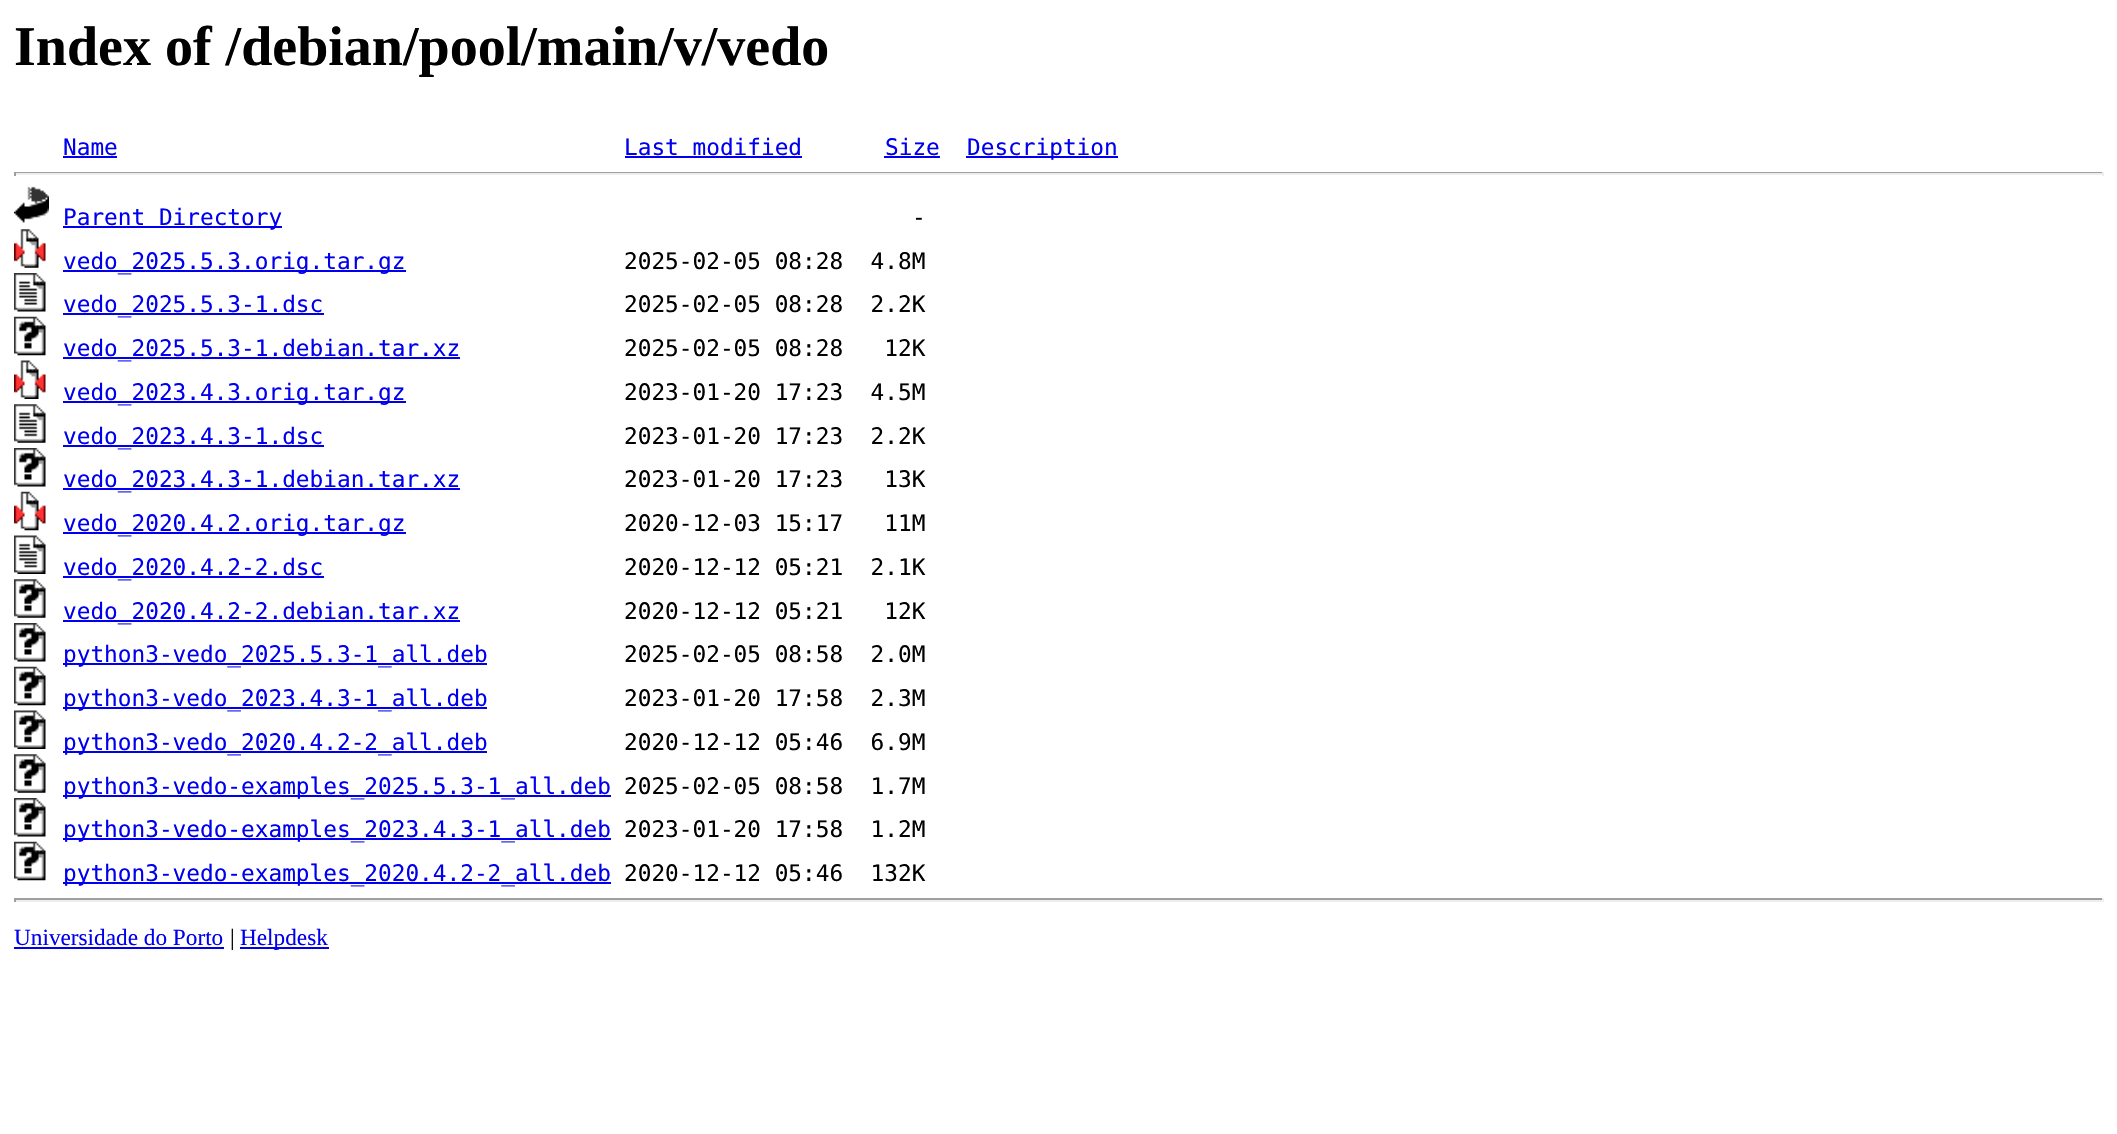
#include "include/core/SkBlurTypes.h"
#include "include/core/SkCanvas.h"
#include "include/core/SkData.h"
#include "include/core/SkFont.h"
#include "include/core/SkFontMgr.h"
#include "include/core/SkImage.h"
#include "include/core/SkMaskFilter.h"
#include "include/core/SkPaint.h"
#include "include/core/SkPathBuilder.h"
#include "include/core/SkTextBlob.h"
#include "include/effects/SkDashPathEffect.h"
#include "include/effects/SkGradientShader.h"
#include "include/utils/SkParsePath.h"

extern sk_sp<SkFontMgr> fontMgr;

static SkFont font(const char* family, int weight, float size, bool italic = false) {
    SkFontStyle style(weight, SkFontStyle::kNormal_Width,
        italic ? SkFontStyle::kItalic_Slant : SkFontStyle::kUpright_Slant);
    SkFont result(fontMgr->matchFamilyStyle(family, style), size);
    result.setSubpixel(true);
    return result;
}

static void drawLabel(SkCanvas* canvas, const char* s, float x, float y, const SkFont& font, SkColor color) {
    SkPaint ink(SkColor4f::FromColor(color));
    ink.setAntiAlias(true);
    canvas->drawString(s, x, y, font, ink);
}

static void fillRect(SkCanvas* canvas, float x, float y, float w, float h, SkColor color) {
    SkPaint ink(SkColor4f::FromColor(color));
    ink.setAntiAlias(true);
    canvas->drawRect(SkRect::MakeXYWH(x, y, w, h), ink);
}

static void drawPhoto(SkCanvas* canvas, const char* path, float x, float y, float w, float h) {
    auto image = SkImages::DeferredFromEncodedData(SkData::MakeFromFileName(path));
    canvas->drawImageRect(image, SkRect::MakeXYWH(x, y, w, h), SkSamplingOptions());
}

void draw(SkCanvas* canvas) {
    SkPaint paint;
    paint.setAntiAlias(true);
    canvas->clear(0xFFFFFFFF);
    SkFont font1 = font("Liberation Serif", 700, 56);
    drawLabel(canvas, "Index of /debian/pool/main/v/vedo", 14, 65, font1, 0xFF000000);
    SkFont font2 = font("DejaVu Sans Mono", 400, 22.75f);
    drawLabel(canvas, "Name", 63, 155, font2, 0xFF0000EE);
    fillRect(canvas, 63, 156, 54, 2, 0xFF0000EE);
    drawLabel(canvas, "Last modified", 624, 155, font2, 0xFF0000EE);
    fillRect(canvas, 625, 156, 177, 2, 0xFF0000EE);
    drawLabel(canvas, "Size", 885, 155, font2, 0xFF0000EE);
    fillRect(canvas, 884, 156, 56, 2, 0xFF0000EE);
    fillRect(canvas, 966, 156, 152, 2, 0xFF0000EE);
    drawLabel(canvas, "Description", 967, 155, font2, 0xFF0000EE);
    fillRect(canvas, 14, 172, 2090, 1, 0xFF9F9F9F);
    fillRect(canvas, 2102, 172, 2, 4, 0xFFEEEEEE);
    fillRect(canvas, 14, 173, 2090, 2, 0xFFEEEEEE);
    fillRect(canvas, 14, 172, 2, 4, 0xFF9F9F9F);
    drawPhoto(canvas, "assets/img1.png", 14, 186, 35, 37);
    fillRect(canvas, 63, 226, 219, 2, 0xFF0000EE);
    drawLabel(canvas, "Parent Directory", 63, 225, font2, 0xFF0000EE);
    drawLabel(canvas, "-", 912, 225, font2, 0xFF000000);
    drawPhoto(canvas, "assets/img2.png", 14, 229, 32, 39);
    fillRect(canvas, 63, 270, 343, 2, 0xFF0000EE);
    drawLabel(canvas, "vedo_2025.5.3.orig.tar.gz", 63, 269, font2, 0xFF0000EE);
    drawLabel(canvas, "2025-02-05 08:28  4.8M", 624, 269, font2, 0xFF000000);
    drawPhoto(canvas, "assets/img3.png", 14, 273, 32, 39);
    fillRect(canvas, 63, 313, 261, 2, 0xFF0000EE);
    drawLabel(canvas, "vedo_2025.5.3-1.dsc", 63, 312, font2, 0xFF0000EE);
    drawLabel(canvas, "2025-02-05 08:28  2.2K", 624, 312, font2, 0xFF000000);
    drawPhoto(canvas, "assets/img4.png", 14, 316, 32, 40);
    fillRect(canvas, 63, 357, 397, 2, 0xFF0000EE);
    drawLabel(canvas, "vedo_2025.5.3-1.debian.tar.xz", 63, 356, font2, 0xFF0000EE);
    drawLabel(canvas, "2025-02-05 08:28   12K", 624, 356, font2, 0xFF000000);
    drawPhoto(canvas, "assets/img5.png", 14, 360, 32, 39);
    fillRect(canvas, 63, 401, 343, 2, 0xFF0000EE);
    drawLabel(canvas, "vedo_2023.4.3.orig.tar.gz", 63, 400, font2, 0xFF0000EE);
    drawLabel(canvas, "2023-01-20 17:23  4.5M", 624, 400, font2, 0xFF000000);
    drawPhoto(canvas, "assets/img6.png", 14, 404, 32, 39);
    fillRect(canvas, 63, 445, 261, 2, 0xFF0000EE);
    drawLabel(canvas, "vedo_2023.4.3-1.dsc", 63, 444, font2, 0xFF0000EE);
    drawLabel(canvas, "2023-01-20 17:23  2.2K", 624, 444, font2, 0xFF000000);
    drawPhoto(canvas, "assets/img7.png", 14, 448, 32, 39);
    fillRect(canvas, 63, 488, 397, 2, 0xFF0000EE);
    drawLabel(canvas, "vedo_2023.4.3-1.debian.tar.xz", 63, 487, font2, 0xFF0000EE);
    drawLabel(canvas, "2023-01-20 17:23   13K", 624, 487, font2, 0xFF000000);
    drawPhoto(canvas, "assets/img8.png", 14, 491, 32, 40);
    fillRect(canvas, 63, 532, 343, 2, 0xFF0000EE);
    drawLabel(canvas, "vedo_2020.4.2.orig.tar.gz", 63, 531, font2, 0xFF0000EE);
    drawLabel(canvas, "2020-12-03 15:17   11M", 624, 531, font2, 0xFF000000);
    drawPhoto(canvas, "assets/img9.png", 14, 535, 32, 39);
    fillRect(canvas, 63, 576, 261, 2, 0xFF0000EE);
    drawLabel(canvas, "vedo_2020.4.2-2.dsc", 63, 575, font2, 0xFF0000EE);
    drawLabel(canvas, "2020-12-12 05:21  2.1K", 624, 575, font2, 0xFF000000);
    drawPhoto(canvas, "assets/img10.png", 14, 579, 32, 39);
    fillRect(canvas, 63, 620, 397, 2, 0xFF0000EE);
    drawLabel(canvas, "vedo_2020.4.2-2.debian.tar.xz", 63, 619, font2, 0xFF0000EE);
    drawLabel(canvas, "2020-12-12 05:21   12K", 624, 619, font2, 0xFF000000);
    drawPhoto(canvas, "assets/img7.png", 14, 623, 32, 39);
    fillRect(canvas, 63, 663, 424, 2, 0xFF0000EE);
    drawLabel(canvas, "python3-vedo_2025.5.3-1_all.deb", 63, 662, font2, 0xFF0000EE);
    drawLabel(canvas, "2025-02-05 08:58  2.0M", 624, 662, font2, 0xFF000000);
    drawPhoto(canvas, "assets/img4.png", 14, 666, 32, 40);
    fillRect(canvas, 63, 707, 424, 2, 0xFF0000EE);
    drawLabel(canvas, "python3-vedo_2023.4.3-1_all.deb", 63, 706, font2, 0xFF0000EE);
    drawLabel(canvas, "2023-01-20 17:58  2.3M", 624, 706, font2, 0xFF000000);
    drawPhoto(canvas, "assets/img11.png", 14, 710, 32, 39);
    fillRect(canvas, 63, 751, 424, 2, 0xFF0000EE);
    drawLabel(canvas, "python3-vedo_2020.4.2-2_all.deb", 63, 750, font2, 0xFF0000EE);
    drawLabel(canvas, "2020-12-12 05:46  6.9M", 624, 750, font2, 0xFF000000);
    drawPhoto(canvas, "assets/img10.png", 14, 754, 32, 39);
    fillRect(canvas, 63, 795, 548, 2, 0xFF0000EE);
    drawLabel(canvas, "python3-vedo-examples_2025.5.3-1_all.deb", 63, 794, font2, 0xFF0000EE);
    drawLabel(canvas, "2025-02-05 08:58  1.7M", 624, 794, font2, 0xFF000000);
    drawPhoto(canvas, "assets/img7.png", 14, 798, 32, 39);
    fillRect(canvas, 63, 838, 548, 2, 0xFF0000EE);
    drawLabel(canvas, "python3-vedo-examples_2023.4.3-1_all.deb", 63, 837, font2, 0xFF0000EE);
    drawLabel(canvas, "2023-01-20 17:58  1.2M", 624, 837, font2, 0xFF000000);
    drawPhoto(canvas, "assets/img4.png", 14, 841, 32, 40);
    fillRect(canvas, 63, 882, 548, 2, 0xFF0000EE);
    drawLabel(canvas, "python3-vedo-examples_2020.4.2-2_all.deb", 63, 881, font2, 0xFF0000EE);
    drawLabel(canvas, "2020-12-12 05:46  132K", 624, 881, font2, 0xFF000000);
    fillRect(canvas, 14, 898, 2090, 2, 0xFF9F9F9F);
    fillRect(canvas, 2102, 898, 2, 4, 0xFFEEEEEE);
    fillRect(canvas, 14, 900, 2090, 2, 0xFFEEEEEE);
    fillRect(canvas, 14, 898, 2, 4, 0xFF9F9F9F);
    SkFont font3 = font("Liberation Serif", 400, 23.25f);
    drawLabel(canvas, "Universidade do Porto", 14, 945, font3, 0xFF0000EE);
    fillRect(canvas, 14, 947, 210, 2, 0xFF0000EE);
    drawLabel(canvas, "|", 230, 945, font3, 0xFF000000);
    fillRect(canvas, 240, 947, 89, 2, 0xFF0000EE);
    drawLabel(canvas, "Helpdesk", 240, 945, font3, 0xFF0000EE);
}
